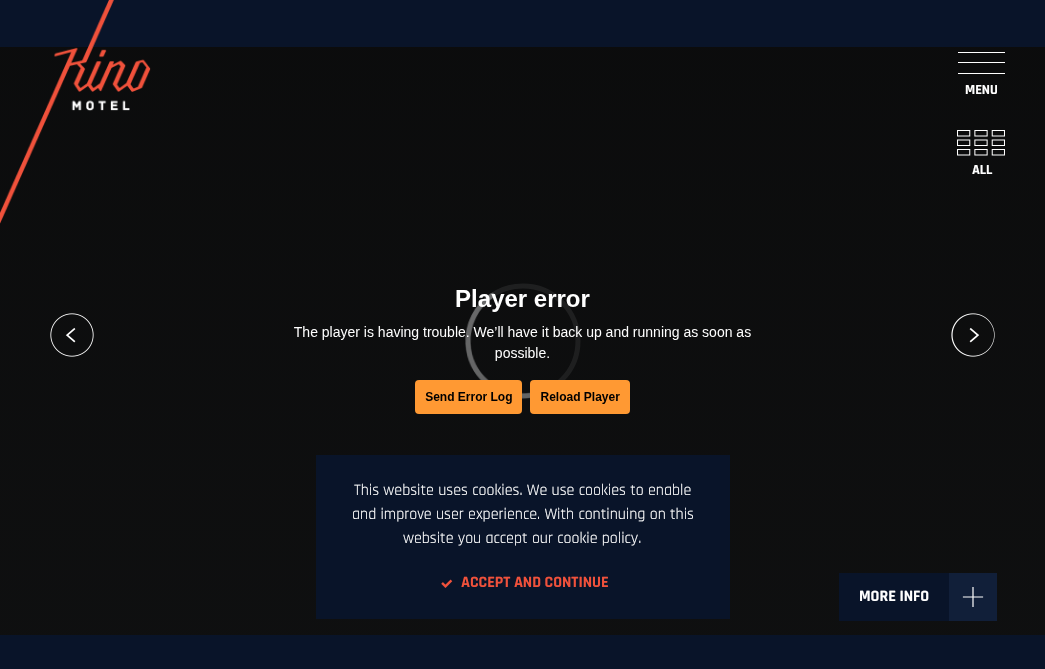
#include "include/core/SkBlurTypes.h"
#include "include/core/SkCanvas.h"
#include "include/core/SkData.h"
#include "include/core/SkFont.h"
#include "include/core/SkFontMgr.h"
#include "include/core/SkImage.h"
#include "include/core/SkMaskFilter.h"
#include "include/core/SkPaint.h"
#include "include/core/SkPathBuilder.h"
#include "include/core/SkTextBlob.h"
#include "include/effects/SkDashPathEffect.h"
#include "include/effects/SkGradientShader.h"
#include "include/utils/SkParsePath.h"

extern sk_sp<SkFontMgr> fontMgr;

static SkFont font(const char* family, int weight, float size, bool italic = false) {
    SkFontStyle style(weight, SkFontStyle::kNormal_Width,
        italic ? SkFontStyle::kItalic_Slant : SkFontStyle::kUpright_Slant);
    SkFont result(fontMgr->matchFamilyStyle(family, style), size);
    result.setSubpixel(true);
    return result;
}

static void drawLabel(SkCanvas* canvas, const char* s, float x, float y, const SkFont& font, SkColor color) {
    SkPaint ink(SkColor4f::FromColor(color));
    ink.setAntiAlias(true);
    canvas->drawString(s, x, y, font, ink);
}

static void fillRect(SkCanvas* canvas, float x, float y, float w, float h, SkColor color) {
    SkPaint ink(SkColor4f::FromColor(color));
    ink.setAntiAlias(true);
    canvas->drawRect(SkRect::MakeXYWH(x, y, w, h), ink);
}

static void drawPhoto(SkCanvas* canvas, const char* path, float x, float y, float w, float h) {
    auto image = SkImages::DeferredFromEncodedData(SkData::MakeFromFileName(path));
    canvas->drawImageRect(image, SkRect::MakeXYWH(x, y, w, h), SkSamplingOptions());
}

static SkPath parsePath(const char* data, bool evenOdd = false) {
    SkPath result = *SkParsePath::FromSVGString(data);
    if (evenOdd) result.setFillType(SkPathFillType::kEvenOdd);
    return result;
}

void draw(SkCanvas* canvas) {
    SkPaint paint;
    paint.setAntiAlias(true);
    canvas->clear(0xFF091429);
    drawPhoto(canvas, "assets/img4.png", 0, 47, 1045, 588);
    drawPhoto(canvas, "assets/img1.png", 0, 0, 151, 224);
    fillRect(canvas, 958, 52, 47, 1, 0xFFFFFFFF);
    fillRect(canvas, 958, 62, 47, 1, 0xFFFFFFFF);
    fillRect(canvas, 958, 73, 47, 1, 0xFFFFFFFF);
    SkFont font1 = font("Rajdhani", 700, 14);
    drawLabel(canvas, "MENU", 965, 94, font1, 0xFFFFFFFF);
    drawPhoto(canvas, "assets/img2.png", 957, 130, 48, 26);
    drawLabel(canvas, "ALL", 972, 174, font1, 0xFFFFFFFF);
    fillRect(canvas, 316, 455, 414, 164, 0xFF091429);
    SkFont font2 = font("Rajdhani", 400, 16);
    drawLabel(canvas, "This website uses cookies. We use cookies to enable", 354, 495, font2, 0xFFFFFFFF);
    drawLabel(canvas, "and improve user experience. With continuing on this", 352, 519, font2, 0xFFFFFFFF);
    drawLabel(canvas, "website you accept our cookie policy.", 403, 543, font2, 0xFFFFFFFF);
    drawPhoto(canvas, "assets/img3.png", 441, 579, 12, 9);
    SkFont font3 = font("Rajdhani", 700, 16);
    drawLabel(canvas, "ACCEPT AND CONTINUE", 461, 587, font3, 0xFFF0513B);
    drawPhoto(canvas, "assets/img5.png", 50, 313, 44, 44);
    drawPhoto(canvas, "assets/img6.png", 951, 313, 44, 44);
    fillRect(canvas, 839, 573, 110, 48, 0xFF091429);
    drawLabel(canvas, "MORE INFO", 859, 601, font3, 0xFFFFFFFF);
    fillRect(canvas, 949, 573, 48, 48, 0xFF111F39);
    paint.setStroke(true);
    paint.setStrokeWidth(1.2f);
    paint.setStrokeCap(SkPaint::kSquare_Cap);
    paint.setColor(0xFFFFFFFF);
    canvas->drawPath(parsePath("M963.5 597H982.5M973 606.5V587.5"), paint);
}
